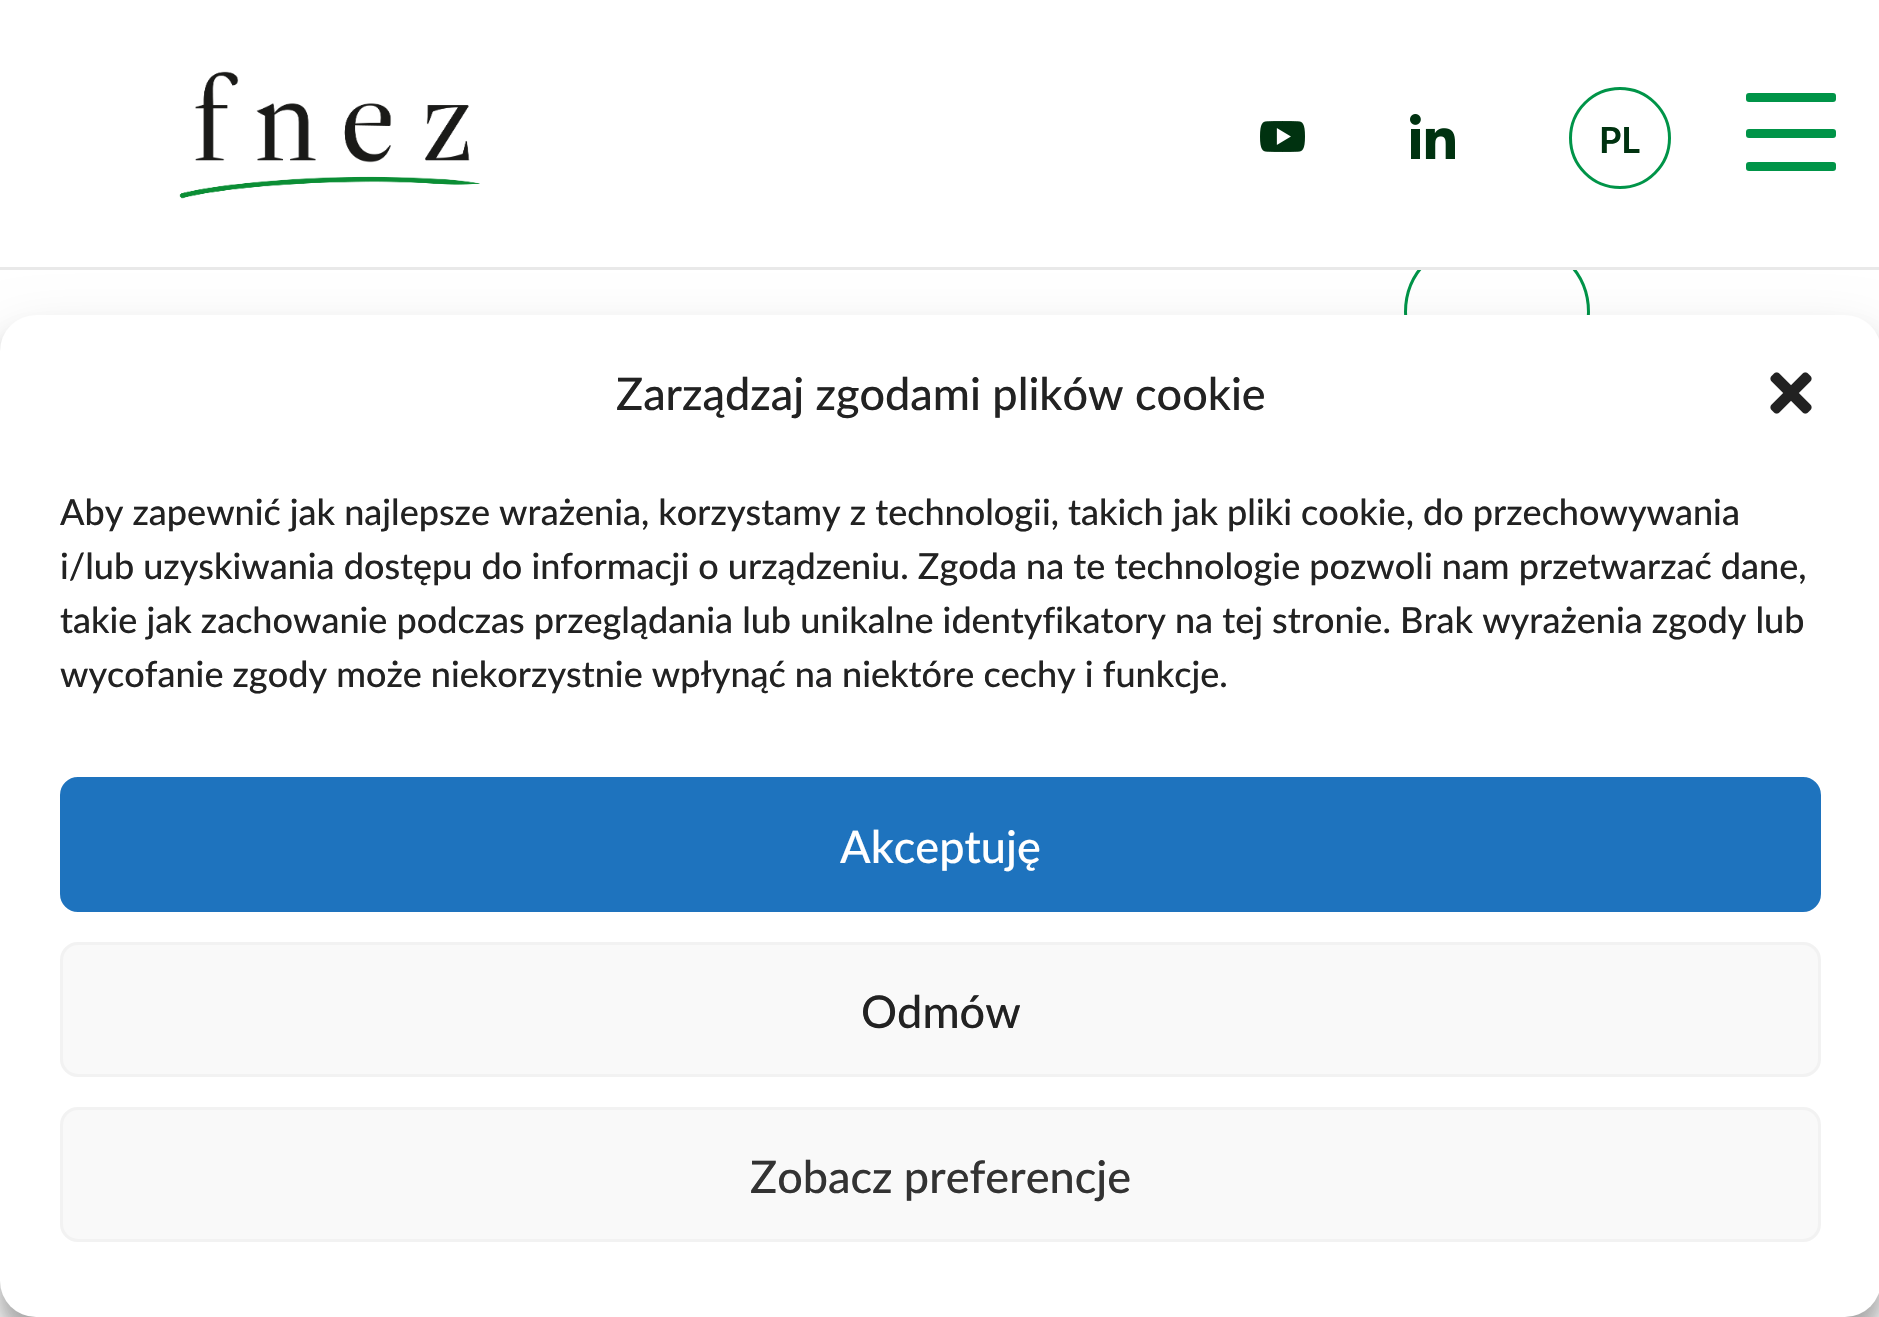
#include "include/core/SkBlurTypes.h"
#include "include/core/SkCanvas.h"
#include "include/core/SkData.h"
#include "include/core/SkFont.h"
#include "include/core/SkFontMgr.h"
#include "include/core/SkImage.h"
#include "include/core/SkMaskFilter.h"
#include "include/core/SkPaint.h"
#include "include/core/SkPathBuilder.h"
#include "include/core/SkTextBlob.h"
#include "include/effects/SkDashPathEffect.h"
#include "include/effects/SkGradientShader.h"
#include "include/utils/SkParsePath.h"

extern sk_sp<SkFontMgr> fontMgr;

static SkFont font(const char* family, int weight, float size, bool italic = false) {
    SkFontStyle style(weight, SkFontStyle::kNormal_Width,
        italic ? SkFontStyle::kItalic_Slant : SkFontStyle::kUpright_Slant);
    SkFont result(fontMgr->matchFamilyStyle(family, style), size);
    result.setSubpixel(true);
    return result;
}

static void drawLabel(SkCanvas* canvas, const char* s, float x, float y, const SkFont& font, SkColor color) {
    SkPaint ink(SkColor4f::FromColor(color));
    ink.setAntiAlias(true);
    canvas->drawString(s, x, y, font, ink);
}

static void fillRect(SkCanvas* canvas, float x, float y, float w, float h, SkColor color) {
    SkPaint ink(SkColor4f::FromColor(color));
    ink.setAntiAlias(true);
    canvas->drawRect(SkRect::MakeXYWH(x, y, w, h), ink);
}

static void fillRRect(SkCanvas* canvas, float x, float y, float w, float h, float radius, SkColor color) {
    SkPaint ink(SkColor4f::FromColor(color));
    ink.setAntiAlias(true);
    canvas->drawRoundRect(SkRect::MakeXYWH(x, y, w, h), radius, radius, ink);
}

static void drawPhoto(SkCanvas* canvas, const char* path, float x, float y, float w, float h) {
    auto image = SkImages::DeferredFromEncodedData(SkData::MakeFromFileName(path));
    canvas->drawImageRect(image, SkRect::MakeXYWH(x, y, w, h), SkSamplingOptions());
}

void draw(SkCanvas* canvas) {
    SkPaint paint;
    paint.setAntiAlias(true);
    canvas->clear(0xFFFFFFFF);
    drawPhoto(canvas, "assets/img1.png", 1260, 121, 45, 31);
    drawPhoto(canvas, "assets/img2.png", 1410, 114, 45, 45);
    paint.setStroke(true);
    paint.setStrokeWidth(3);
    paint.setColor(0xFF009448);
    canvas->drawRoundRect(SkRect::MakeXYWH(1405.5f, 241.5f, 183, 141), 70.5f, 70.5f, paint);
    fillRect(canvas, 1419, 240, 156, 27, 0xFFFFFFFF);
    fillRect(canvas, 0, 267, 1879, 3, 0xFFE9E9E9);
    drawPhoto(canvas, "assets/img3.png", 179, 71, 301, 128);
    canvas->drawCircle(1620, 138, 49.5f, paint);
    SkFont font1 = font("Lato", 700, 36);
    drawLabel(canvas, "PL", 1599, 153, font1, 0xFF003210);
    fillRRect(canvas, 1746, 93, 90, 9, 3, 0xFF009448);
    fillRRect(canvas, 1746, 129, 90, 9, 3, 0xFF009448);
    fillRRect(canvas, 1746, 162, 90, 9, 3, 0xFF009448);
    paint.setStroke(false);
    paint.setColor(0x3B000000);
    paint.setMaskFilter(SkMaskFilter::MakeBlur(kNormal_SkBlurStyle, 9));
    canvas->drawRoundRect(SkRect::MakeXYWH(0, 333, 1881, 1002), 36, 36, paint);
    paint.setMaskFilter(nullptr);
    paint.setColor(0x30000000);
    paint.setMaskFilter(SkMaskFilter::MakeBlur(kNormal_SkBlurStyle, 30));
    canvas->drawRoundRect(SkRect::MakeXYWH(0, 345, 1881, 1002), 36, 36, paint);
    paint.setMaskFilter(nullptr);
    fillRRect(canvas, 0, 315, 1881, 1002, 36, 0xFFFFFFFF);
    SkFont font2 = font("Lato", 500, 45);
    drawLabel(canvas, "Zarządzaj zgodami plików cookie", 616, 410, font2, 0xFF222222);
    drawPhoto(canvas, "assets/img4.png", 1770, 372, 42, 42);
    SkFont font3 = font("Lato", 500, 36);
    drawLabel(canvas, "Aby zapewnić jak najlepsze wrażenia, korzystamy z technologii, takich jak pliki cookie, do przechowywania", 60, 525, font3, 0xFF222222);
    drawLabel(canvas, "i/lub uzyskiwania dostępu do informacji o urządzeniu. Zgoda na te technologie pozwoli nam przetwarzać dane,", 60, 579, font3, 0xFF222222);
    drawLabel(canvas, "takie jak zachowanie podczas przeglądania lub unikalne identyfikatory na tej stronie. Brak wyrażenia zgody lub", 60, 633, font3, 0xFF222222);
    drawLabel(canvas, "wycofanie zgody może niekorzystnie wpłynąć na niektóre cechy i funkcje.", 60, 687, font3, 0xFF222222);
    paint.setColor(0xFF1E73BE);
    canvas->drawRoundRect(SkRect::MakeXYWH(61.5f, 778.5f, 1758, 132), 16.5f, 16.5f, paint);
    paint.setStroke(true);
    canvas->drawRoundRect(SkRect::MakeXYWH(61.5f, 778.5f, 1758, 132), 16.5f, 16.5f, paint);
    drawLabel(canvas, "Akceptuję", 840, 863, font2, 0xFFFFFFFF);
    paint.setStroke(false);
    paint.setColor(0xFFF9F9F9);
    canvas->drawRoundRect(SkRect::MakeXYWH(61.5f, 943.5f, 1758, 132), 16.5f, 16.5f, paint);
    paint.setStroke(true);
    paint.setColor(0xFFF2F2F2);
    canvas->drawRoundRect(SkRect::MakeXYWH(61.5f, 943.5f, 1758, 132), 16.5f, 16.5f, paint);
    drawLabel(canvas, "Odmów", 861, 1028, font2, 0xFF222222);
    paint.setStroke(false);
    paint.setColor(0xFFF9F9F9);
    canvas->drawRoundRect(SkRect::MakeXYWH(61.5f, 1108.5f, 1758, 132), 16.5f, 16.5f, paint);
    paint.setStroke(true);
    paint.setColor(0xFFF2F2F2);
    canvas->drawRoundRect(SkRect::MakeXYWH(61.5f, 1108.5f, 1758, 132), 16.5f, 16.5f, paint);
    drawLabel(canvas, "Zobacz preferencje", 750, 1193, font2, 0xFF333333);
}
